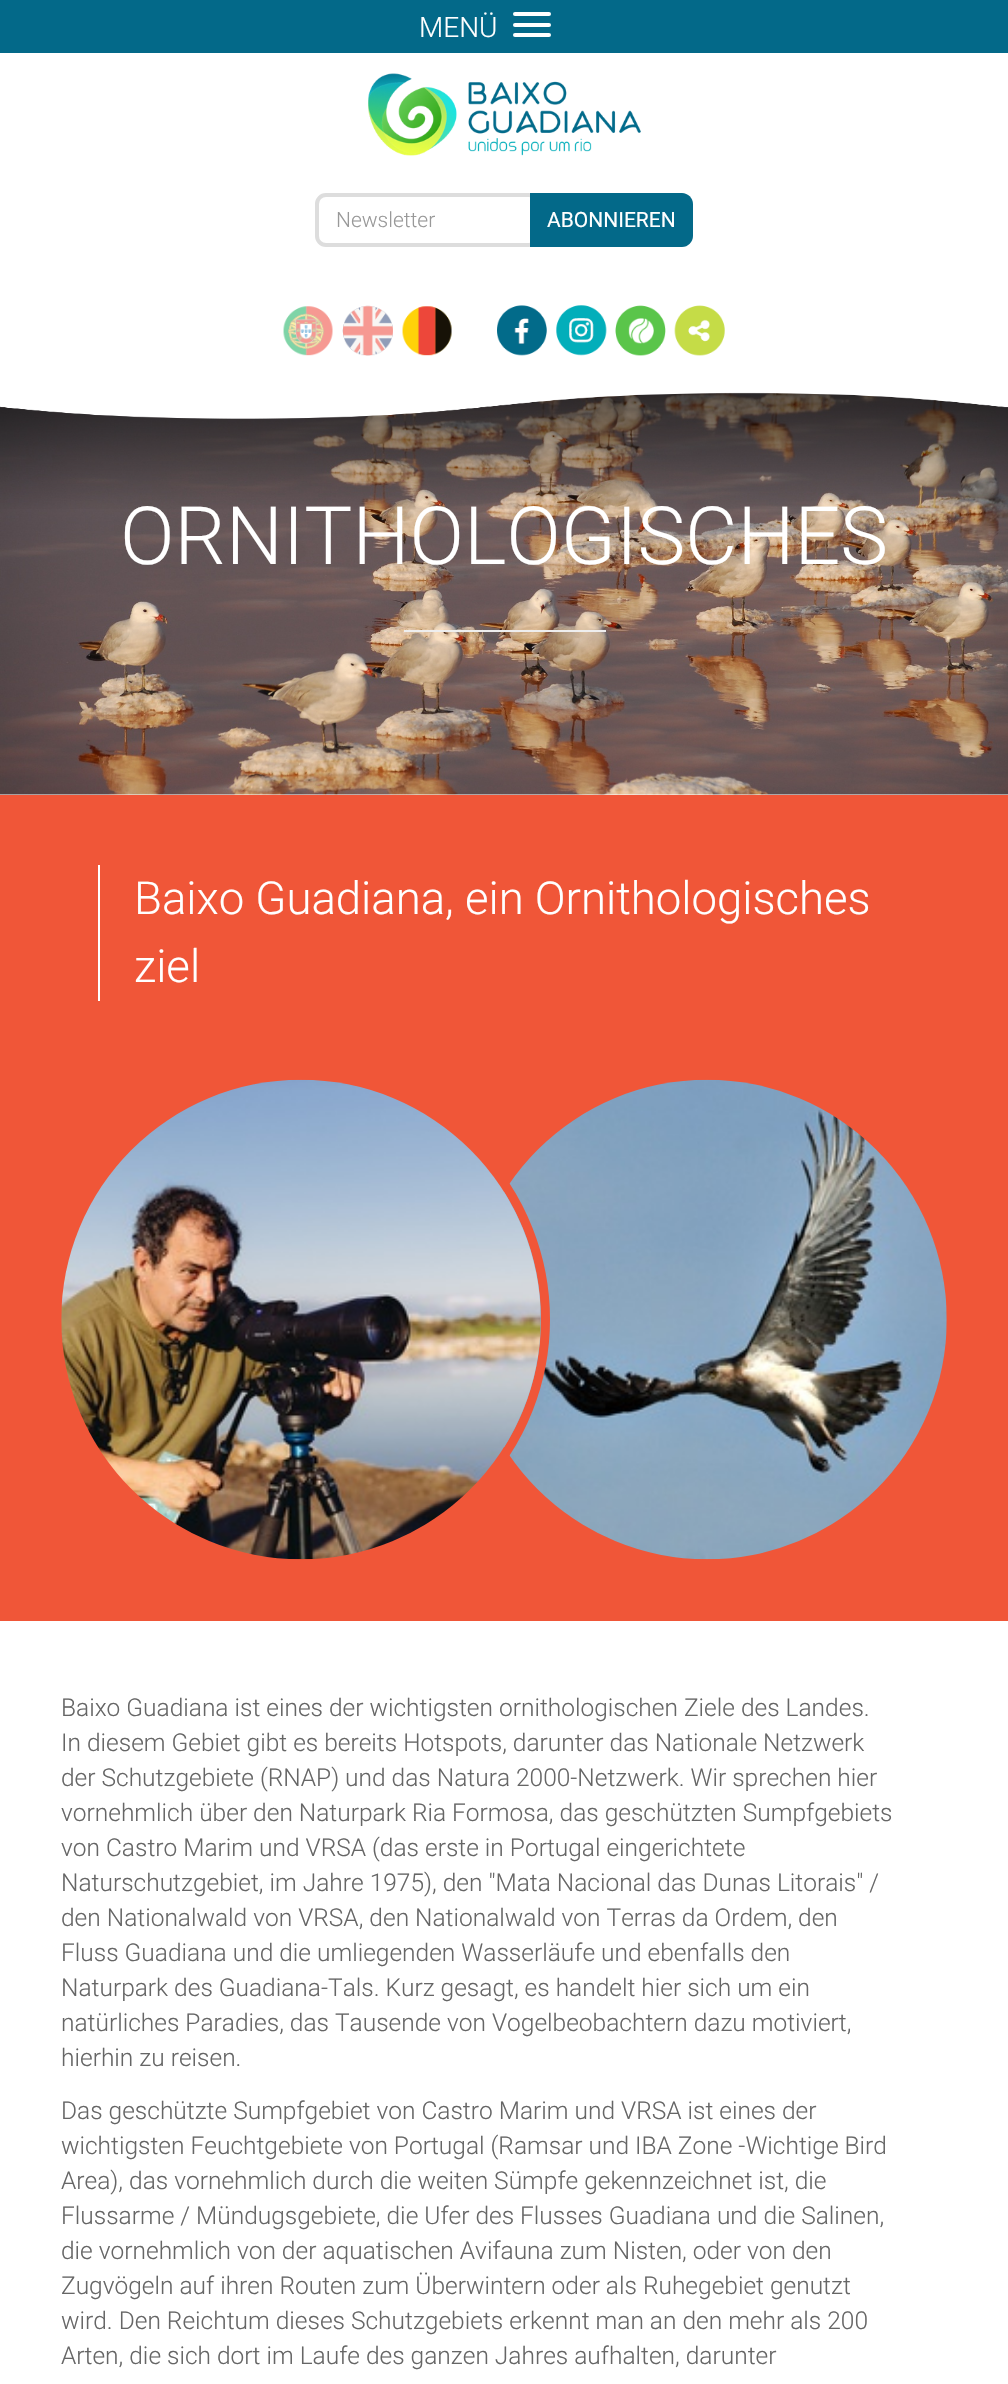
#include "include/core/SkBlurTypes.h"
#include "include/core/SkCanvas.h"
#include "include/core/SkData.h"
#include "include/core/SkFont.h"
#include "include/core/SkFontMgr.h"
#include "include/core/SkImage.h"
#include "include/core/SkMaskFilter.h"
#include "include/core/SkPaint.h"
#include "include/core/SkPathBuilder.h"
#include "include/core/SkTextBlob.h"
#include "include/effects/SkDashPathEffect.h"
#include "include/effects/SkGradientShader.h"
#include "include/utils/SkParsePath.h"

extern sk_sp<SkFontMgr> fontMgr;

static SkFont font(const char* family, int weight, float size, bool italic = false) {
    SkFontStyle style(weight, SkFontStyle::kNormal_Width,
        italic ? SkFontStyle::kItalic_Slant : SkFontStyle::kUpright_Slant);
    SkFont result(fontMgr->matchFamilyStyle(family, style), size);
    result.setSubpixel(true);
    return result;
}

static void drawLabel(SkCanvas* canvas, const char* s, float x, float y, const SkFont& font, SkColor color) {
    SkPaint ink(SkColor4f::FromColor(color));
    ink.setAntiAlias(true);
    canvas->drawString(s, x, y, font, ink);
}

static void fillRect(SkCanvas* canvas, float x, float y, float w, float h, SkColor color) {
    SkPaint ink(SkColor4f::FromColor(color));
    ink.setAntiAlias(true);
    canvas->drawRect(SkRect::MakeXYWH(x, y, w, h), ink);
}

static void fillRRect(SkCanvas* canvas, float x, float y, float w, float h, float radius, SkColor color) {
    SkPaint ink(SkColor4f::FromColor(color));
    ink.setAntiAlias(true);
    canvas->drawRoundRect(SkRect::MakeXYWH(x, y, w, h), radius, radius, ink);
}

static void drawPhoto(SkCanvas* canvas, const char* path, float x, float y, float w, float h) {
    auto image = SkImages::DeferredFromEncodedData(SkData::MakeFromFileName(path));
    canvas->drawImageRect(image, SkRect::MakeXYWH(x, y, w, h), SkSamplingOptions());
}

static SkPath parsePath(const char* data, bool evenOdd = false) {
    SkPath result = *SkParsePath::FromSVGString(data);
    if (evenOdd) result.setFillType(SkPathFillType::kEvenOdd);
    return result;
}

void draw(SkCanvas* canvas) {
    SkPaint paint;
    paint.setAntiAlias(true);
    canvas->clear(0xFFFFFFFF);
    fillRect(canvas, 0, 0, 1008, 53, 0xFF036989);
    SkFont font1 = font("Roboto", 300, 28);
    drawLabel(canvas, "MENÜ", 419, 37, font1, 0xFFFFFFFF);
    fillRRect(canvas, 513, 12, 38, 4, 2, 0xFFFFFFFF);
    fillRRect(canvas, 513, 23, 38, 4, 2, 0xFFFFFFFF);
    fillRRect(canvas, 513, 33, 38, 4, 2, 0xFFFFFFFF);
    paint.setStroke(true);
    paint.setStrokeWidth(4);
    paint.setColor(0xFFDDDDDD);
    canvas->drawPath(parsePath("M326 195H529C532 195 534 197 534 200V240C534 243 532 245 529 245H326C321 245 317 241 317 236V204C317 199 321 195 326 195Z"), paint);
    SkFont font2 = font("Roboto", 300, 21);
    drawLabel(canvas, "Newsletter", 336, 227, font2, 0xFF999999);
    paint.setStroke(false);
    paint.setColor(0xFF036989);
    canvas->drawPath(parsePath("M530 193H682C688 193 693 198 693 204V236C693 242 688 247 682 247H530Z"), paint);
    SkFont font3 = font("Roboto", 400, 21);
    drawLabel(canvas, "ABONNIEREN", 547, 227, font3, 0xFFFFFFFF);
    drawPhoto(canvas, "assets/img1.png", 368, 73, 273, 83);
    drawPhoto(canvas, "assets/img2.png", 283, 306, 50, 50);
    drawPhoto(canvas, "assets/img3.png", 342, 305, 51, 51);
    drawPhoto(canvas, "assets/img4.png", 402, 306, 50, 50);
    drawPhoto(canvas, "assets/img5.png", 497, 305, 50, 51);
    drawPhoto(canvas, "assets/img6.png", 556, 305, 51, 51);
    drawPhoto(canvas, "assets/img7.png", 615, 305, 51, 51);
    drawPhoto(canvas, "assets/img8.png", 674, 305, 51, 51);
    drawPhoto(canvas, "assets/img10.png", 0, 392, 1008, 403);
    {
        const SkColor colors[] = {0x99000000, 0x00000000, 0x00000000};
        const float stops[] = {0, 0.3f, 1};
        const SkPoint ends[] = {{504, 392}, {504, 795}};
        paint.setShader(SkGradientShader::MakeLinear(ends, colors, stops, 3, SkTileMode::kClamp));
        paint.setAlpha(255);
    }
    canvas->drawRect(SkRect::MakeXYWH(0, 392, 1008, 117), paint);
    drawPhoto(canvas, "assets/img9.png", 0, 392, 1008, 27);
    SkFont font4 = font("Roboto", 300, 80.5f);
    drawLabel(canvas, "ORNITHOLOGISCHES", 120, 564, font4, 0xFFFFFFFF);
    fillRect(canvas, 404, 630, 202, 2, 0xFFEEEEEE);
    fillRect(canvas, 0, 795, 1008, 826, 0xFFF05638);
    fillRect(canvas, 98, 865, 2, 136, 0xFFFFFFFF);
    SkFont font5 = font("Roboto", 300, 45.5f);
    drawLabel(canvas, "Baixo Guadiana, ein Ornithologisches", 134, 914, font5, 0xFFFFFFFF);
    drawLabel(canvas, "ziel", 134, 982, font5, 0xFFFFFFFF);
    drawPhoto(canvas, "assets/img12.png", 504, 1079, 443, 481);
    paint.setStroke(true);
    paint.setStrokeWidth(9);
    paint.setShader(nullptr);
    paint.setColor(0xFFF05638);
    canvas->drawCircle(301.5f, 1319.5f, 244, paint);
    drawPhoto(canvas, "assets/img11.png", 61, 1079, 480, 481);
    SkFont font6 = font("Roboto", 300, 24.5f);
    drawLabel(canvas, "Baixo Guadiana ist eines der wichtigsten ornithologischen Ziele des Landes.", 61, 1716, font6, 0xFF666666);
    drawLabel(canvas, "In diesem Gebiet gibt es bereits Hotspots, darunter das Nationale Netzwerk", 61, 1751, font6, 0xFF666666);
    drawLabel(canvas, "der Schutzgebiete (RNAP) und das Natura 2000-Netzwerk. Wir sprechen hier", 61, 1786, font6, 0xFF666666);
    drawLabel(canvas, "vornehmlich über den Naturpark Ria Formosa, das geschützten Sumpfgebiets", 61, 1821, font6, 0xFF666666);
    drawLabel(canvas, "von Castro Marim und VRSA (das erste in Portugal eingerichtete", 61, 1856, font6, 0xFF666666);
    drawLabel(canvas, "Naturschutzgebiet, im Jahre 1975), den \"Mata Nacional das Dunas Litorais\" /", 61, 1891, font6, 0xFF666666);
    drawLabel(canvas, "den Nationalwald von VRSA, den Nationalwald von Terras da Ordem, den", 61, 1926, font6, 0xFF666666);
    drawLabel(canvas, "Fluss Guadiana und die umliegenden Wasserläufe und ebenfalls den", 61, 1961, font6, 0xFF666666);
    drawLabel(canvas, "Naturpark des Guadiana-Tals. Kurz gesagt, es handelt hier sich um ein", 61, 1996, font6, 0xFF666666);
    drawLabel(canvas, "natürliches Paradies, das Tausende von Vogelbeobachtern dazu motiviert,", 61, 2031, font6, 0xFF666666);
    drawLabel(canvas, "hierhin zu reisen.", 61, 2066, font6, 0xFF666666);
    drawLabel(canvas, "Das geschützte Sumpfgebiet von Castro Marim und VRSA ist eines der", 61, 2119, font6, 0xFF666666);
    drawLabel(canvas, "wichtigsten Feuchtgebiete von Portugal (Ramsar und IBA Zone -Wichtige Bird", 61, 2154, font6, 0xFF666666);
    drawLabel(canvas, "Area), das vornehmlich durch die weiten Sümpfe gekennzeichnet ist, die", 61, 2189, font6, 0xFF666666);
    drawLabel(canvas, "Flussarme / Mündugsgebiete, die Ufer des Flusses Guadiana und die Salinen,", 61, 2224, font6, 0xFF666666);
    drawLabel(canvas, "die vornehmlich von der aquatischen Avifauna zum Nisten, oder von den", 61, 2259, font6, 0xFF666666);
    drawLabel(canvas, "Zugvögeln auf ihren Routen zum Überwintern oder als Ruhegebiet genutzt", 61, 2294, font6, 0xFF666666);
    drawLabel(canvas, "wird. Den Reichtum dieses Schutzgebiets erkennt man an den mehr als 200", 61, 2329, font6, 0xFF666666);
    drawLabel(canvas, "Arten, die sich dort im Laufe des ganzen Jahres aufhalten, darunter", 61, 2364, font6, 0xFF666666);
}
